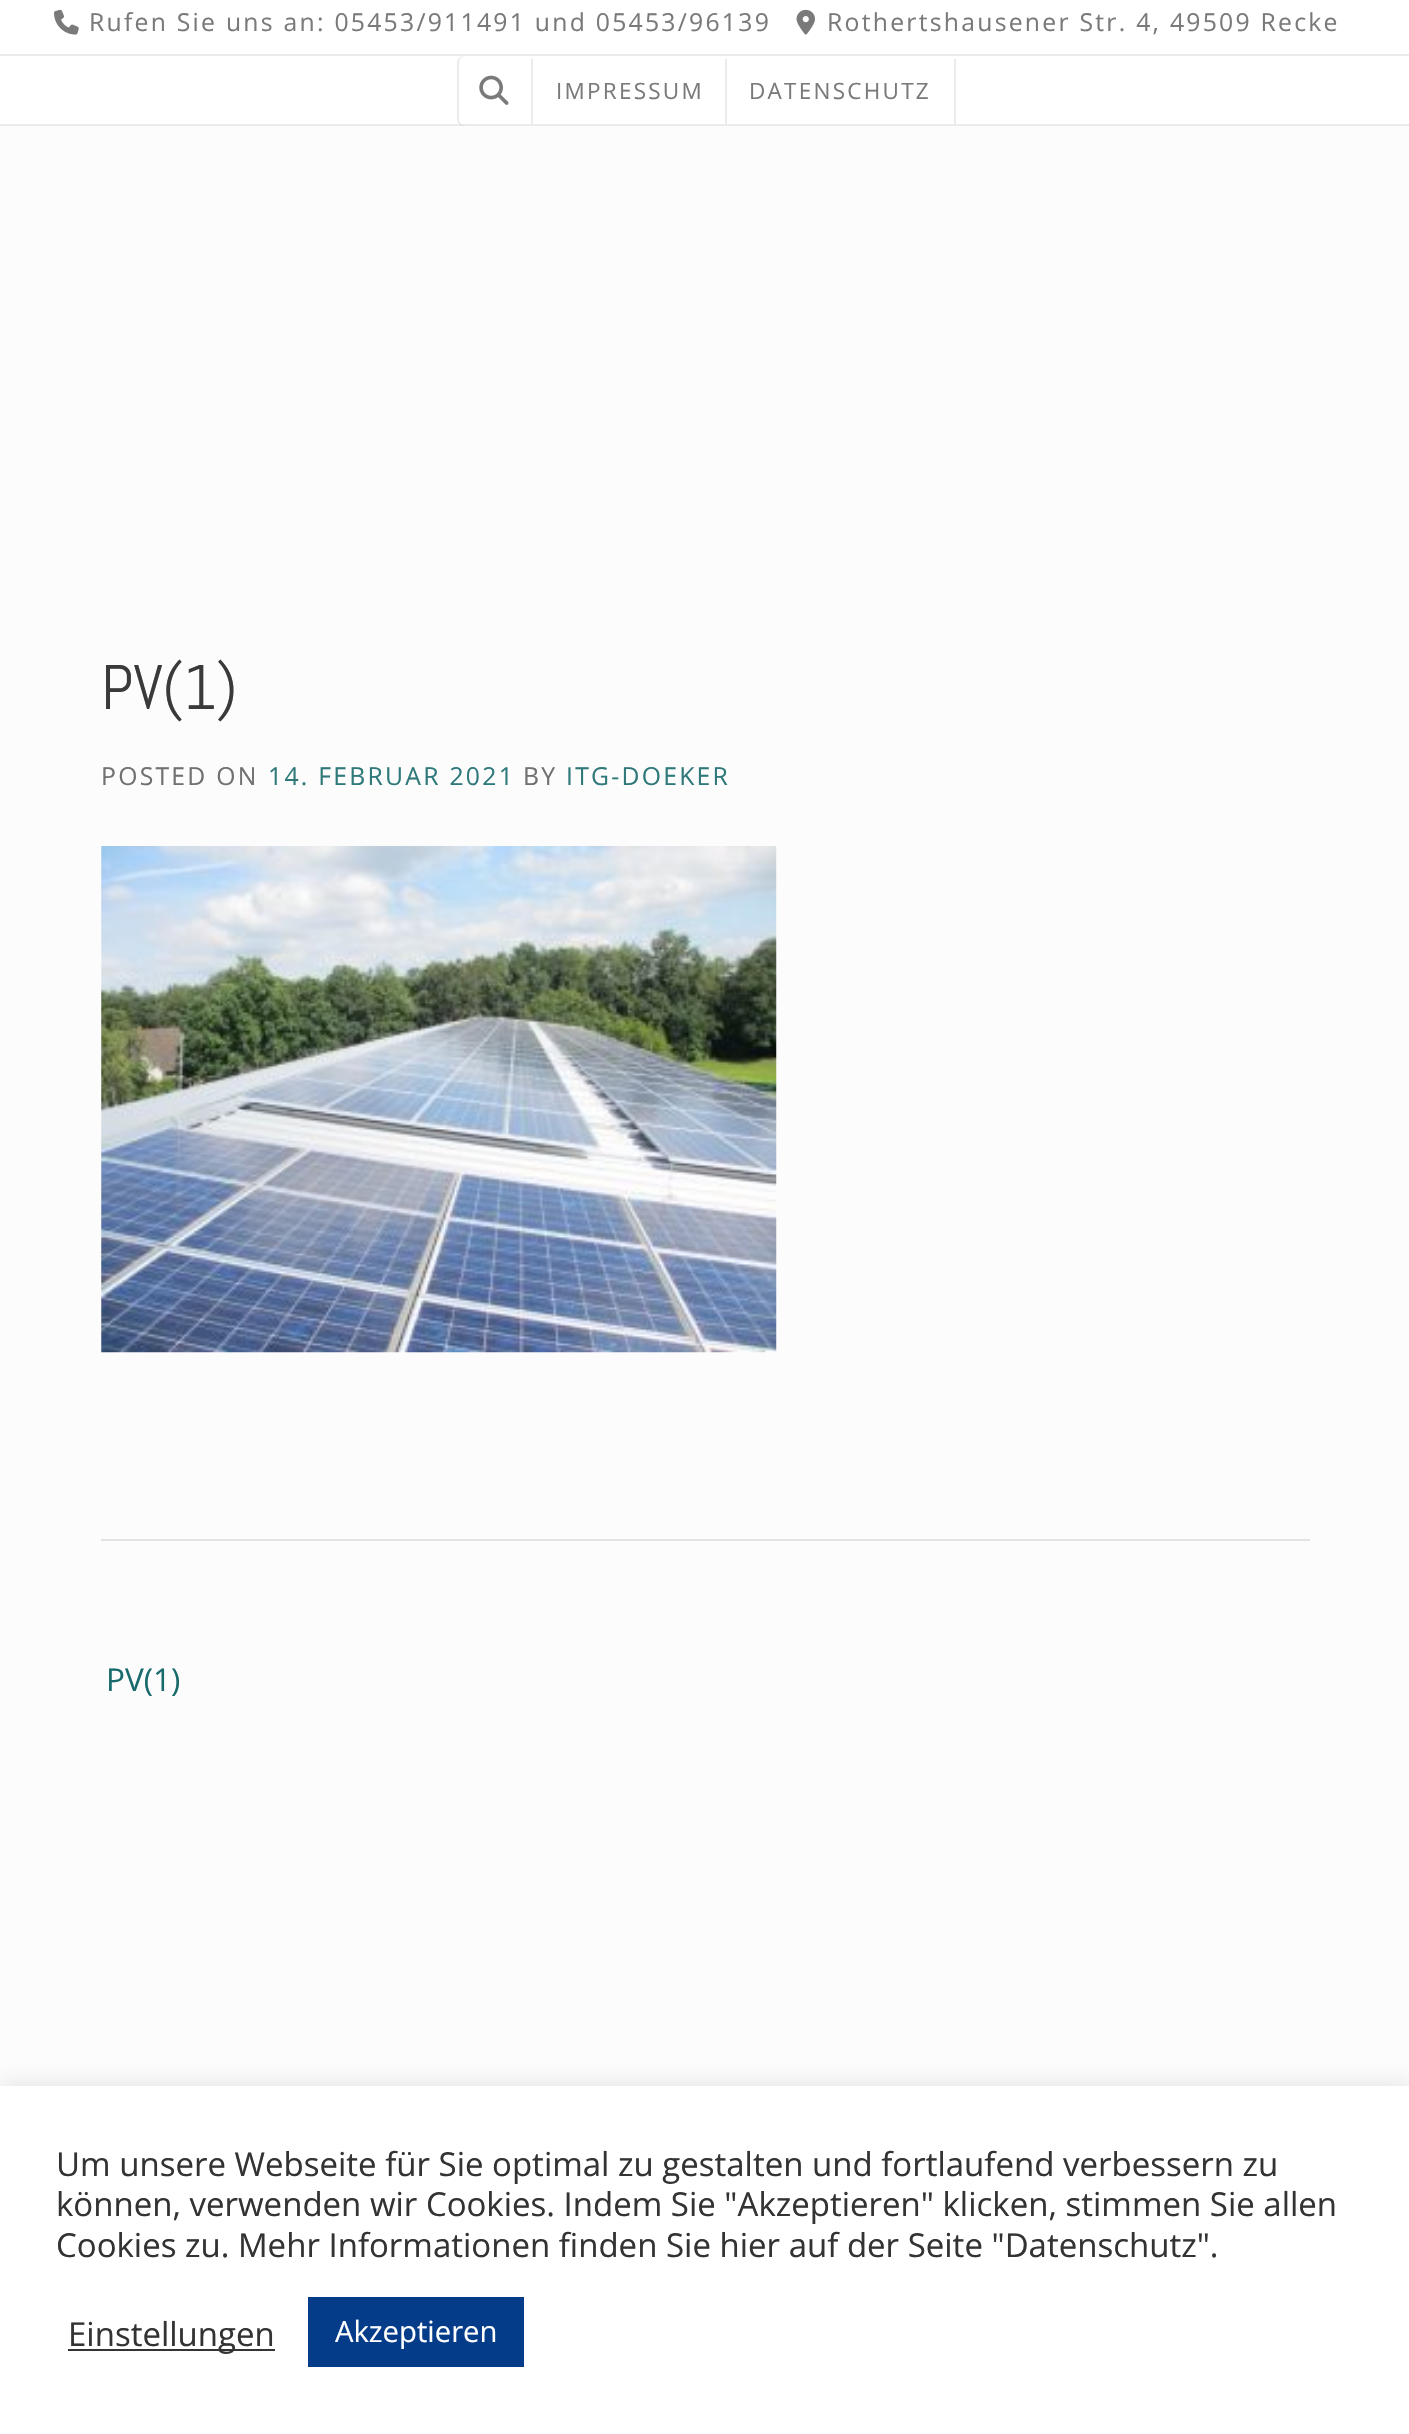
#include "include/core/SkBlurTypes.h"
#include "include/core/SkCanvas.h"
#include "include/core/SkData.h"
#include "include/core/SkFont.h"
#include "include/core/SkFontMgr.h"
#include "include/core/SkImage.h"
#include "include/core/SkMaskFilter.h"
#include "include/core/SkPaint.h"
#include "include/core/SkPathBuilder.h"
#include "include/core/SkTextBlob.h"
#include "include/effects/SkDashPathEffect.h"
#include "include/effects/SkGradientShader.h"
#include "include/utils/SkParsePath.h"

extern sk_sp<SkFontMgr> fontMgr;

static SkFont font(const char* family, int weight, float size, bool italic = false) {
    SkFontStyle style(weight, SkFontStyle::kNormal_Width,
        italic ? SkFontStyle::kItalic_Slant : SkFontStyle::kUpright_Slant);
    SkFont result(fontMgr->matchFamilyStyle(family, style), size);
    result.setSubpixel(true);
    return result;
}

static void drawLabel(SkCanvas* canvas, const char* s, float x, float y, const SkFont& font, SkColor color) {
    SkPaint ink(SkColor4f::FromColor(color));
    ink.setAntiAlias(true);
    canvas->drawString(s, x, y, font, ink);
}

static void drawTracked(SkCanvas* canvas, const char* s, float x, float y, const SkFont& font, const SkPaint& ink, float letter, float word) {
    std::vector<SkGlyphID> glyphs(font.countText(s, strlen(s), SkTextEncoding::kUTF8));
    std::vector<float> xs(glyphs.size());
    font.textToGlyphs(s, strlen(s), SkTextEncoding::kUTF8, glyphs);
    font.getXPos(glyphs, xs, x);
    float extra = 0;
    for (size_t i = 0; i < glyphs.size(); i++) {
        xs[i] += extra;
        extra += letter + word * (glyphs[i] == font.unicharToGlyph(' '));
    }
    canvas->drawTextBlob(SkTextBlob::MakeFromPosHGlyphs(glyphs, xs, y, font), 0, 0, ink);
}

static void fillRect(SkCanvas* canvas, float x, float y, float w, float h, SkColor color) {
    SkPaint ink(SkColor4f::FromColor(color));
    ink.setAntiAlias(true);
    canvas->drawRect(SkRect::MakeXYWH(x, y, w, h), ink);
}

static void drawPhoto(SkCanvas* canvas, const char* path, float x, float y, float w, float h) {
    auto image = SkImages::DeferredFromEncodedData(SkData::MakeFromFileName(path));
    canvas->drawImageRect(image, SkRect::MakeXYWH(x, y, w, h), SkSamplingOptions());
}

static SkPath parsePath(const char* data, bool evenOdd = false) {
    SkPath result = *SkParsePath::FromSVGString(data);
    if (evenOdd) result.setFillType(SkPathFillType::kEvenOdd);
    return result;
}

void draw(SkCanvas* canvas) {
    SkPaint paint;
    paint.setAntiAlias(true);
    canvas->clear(0xFFFCFCFC);
    fillRect(canvas, 0, 0, 1409, 54, 0xFFFFFFFF);
    fillRect(canvas, 0, 54, 1409, 2, 0xFFEBEBEB);
    drawPhoto(canvas, "assets/img1.png", 54, 9, 25, 26);
    SkFont font1 = font("Open Sans", 400, 24.75f);
    paint.setColor(0xFF7A7A7A);
    drawTracked(canvas, "Rufen Sie uns an: 05453/911491 und 05453/96139", 89, 31, font1, paint, 2.25f, 0);
    drawPhoto(canvas, "assets/img2.png", 796, 9, 19, 26);
    drawTracked(canvas, "Rothertshausener Str. 4, 49509 Recke", 827, 31, font1, paint, 2.25f, 0);
    fillRect(canvas, 0, 56, 1409, 68, 0xFFFFFFFF);
    fillRect(canvas, 0, 124, 1409, 2, 0xFFEBEBEB);
    paint.setColor(0x14000000);
    canvas->drawPath(parsePath("M464 56C460 56 457 59 457 63V119C457 123 460 126 464 126H466C462 126 459 123 459 119V63C459 59 462 56 466 56Z"), paint);
    drawPhoto(canvas, "assets/img3.png", 479, 75, 30, 30);
    paint.setColor(0xFFEBEBEB);
    canvas->drawPath(parsePath("M531 59V124H725H533V59Z"), paint);
    SkFont font2 = font("Open Sans", 400, 22.5f);
    paint.setColor(0xFF7A7A7A);
    drawTracked(canvas, "IMPRESSUM", 556, 99, font2, paint, 2.25f, 0);
    paint.setColor(0xFFEBEBEB);
    canvas->drawPath(parsePath("M729 124H956V59H954V124Z"), paint);
    canvas->drawPath(parsePath("M725 59V124H952H727V59Z"), paint);
    paint.setColor(0xFF7A7A7A);
    drawTracked(canvas, "DATENSCHUTZ", 749, 99, font2, paint, 2.25f, 0);
    fillRect(canvas, 101, 1539, 1209, 2, 0xFFE3E3E3);
    SkFont font3 = font("Abel", 400, 63);
    drawLabel(canvas, "PV(1)", 101, 709, font3, 0xFF3A3A3A);
    paint.setColor(0xFF727171);
    drawTracked(canvas, "POSTED ON", 101, 785, font1, paint, 2.25f, 0);
    paint.setColor(0xFF30797B);
    drawTracked(canvas, "14. FEBRUAR 2021", 268, 785, font1, paint, 2.25f, 0);
    paint.setColor(0xFF727171);
    drawTracked(canvas, "BY", 523, 785, font1, paint, 2.25f, 0);
    paint.setColor(0xFF30797B);
    drawTracked(canvas, "ITG-DOEKER", 566, 785, font1, paint, 2.25f, 0);
    drawPhoto(canvas, "assets/img4.png", 101, 846, 676, 507);
    SkFont font4 = font("Open Sans", 400, 31.5f);
    drawLabel(canvas, "PV(1)", 106, 1691, font4, 0xFF196A6D);
    paint.setColor(0x4DACABAB);
    paint.setMaskFilter(SkMaskFilter::MakeBlur(kNormal_SkBlurStyle, 11));
    canvas->drawRect(SkRect::MakeXYWH(0, 2084, 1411, 348), paint);
    paint.setMaskFilter(nullptr);
    fillRect(canvas, 0, 2086, 1409, 348, 0xFFFFFFFF);
    SkFont font5 = font("Open Sans", 400, 33);
    drawLabel(canvas, "Um unsere Webseite für Sie optimal zu gestalten und fortlaufend verbessern zu", 56, 2176, font5, 0xFF333333);
    drawLabel(canvas, "können, verwenden wir Cookies. Indem Sie \"Akzeptieren\" klicken, stimmen Sie allen", 56, 2216, font5, 0xFF333333);
    drawLabel(canvas, "Cookies zu. Mehr Informationen finden Sie hier auf der Seite \"Datenschutz\".", 56, 2257, font5, 0xFF333333);
    fillRect(canvas, 68, 2349, 207, 2, 0xFF333333);
    drawLabel(canvas, "Einstellungen", 68, 2346, font5, 0xFF333333);
    fillRect(canvas, 308, 2297, 216, 70, 0xFF043C8A);
    SkFont font6 = font("Open Sans", 400, 29.25f);
    drawLabel(canvas, "Akzeptieren", 335, 2342, font6, 0xFFFFFFFF);
}
